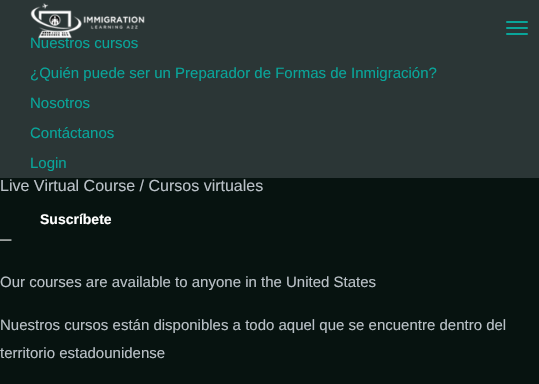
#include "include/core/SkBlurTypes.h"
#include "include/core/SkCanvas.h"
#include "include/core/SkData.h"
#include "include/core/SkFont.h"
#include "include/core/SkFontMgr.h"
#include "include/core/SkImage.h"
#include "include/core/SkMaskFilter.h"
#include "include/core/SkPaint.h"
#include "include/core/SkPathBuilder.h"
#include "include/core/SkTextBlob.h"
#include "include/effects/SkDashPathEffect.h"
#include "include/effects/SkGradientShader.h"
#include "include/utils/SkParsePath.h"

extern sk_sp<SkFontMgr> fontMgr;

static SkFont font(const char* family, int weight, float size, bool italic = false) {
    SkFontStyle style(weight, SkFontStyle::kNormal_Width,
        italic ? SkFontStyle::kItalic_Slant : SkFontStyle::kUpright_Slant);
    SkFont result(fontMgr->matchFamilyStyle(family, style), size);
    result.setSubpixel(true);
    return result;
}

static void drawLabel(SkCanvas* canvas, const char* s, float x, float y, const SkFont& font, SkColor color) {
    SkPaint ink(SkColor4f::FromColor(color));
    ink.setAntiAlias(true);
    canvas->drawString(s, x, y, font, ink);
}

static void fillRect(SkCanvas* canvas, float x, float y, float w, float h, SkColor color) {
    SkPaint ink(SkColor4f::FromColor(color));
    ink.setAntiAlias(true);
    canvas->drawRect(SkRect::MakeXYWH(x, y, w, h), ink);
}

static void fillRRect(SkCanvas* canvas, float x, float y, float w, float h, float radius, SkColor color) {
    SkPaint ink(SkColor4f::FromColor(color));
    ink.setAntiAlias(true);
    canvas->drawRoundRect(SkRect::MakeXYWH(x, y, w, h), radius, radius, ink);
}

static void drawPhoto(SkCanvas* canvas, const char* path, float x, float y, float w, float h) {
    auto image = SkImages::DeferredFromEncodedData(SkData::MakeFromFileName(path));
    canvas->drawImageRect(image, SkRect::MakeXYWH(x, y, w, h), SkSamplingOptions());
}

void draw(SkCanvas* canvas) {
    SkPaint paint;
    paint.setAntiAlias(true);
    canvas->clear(0xFF071310);
    fillRect(canvas, 0, 0, 539, 178, 0xFF2B3636);
    SkFont font1 = font("Liberation Sans", 400, 15);
    drawLabel(canvas, "Nuestros cursos", 30, 48, font1, 0xFF09A59A);
    drawPhoto(canvas, "assets/img1.png", 30, 3, 115, 36);
    fillRRect(canvas, 506, 21, 22, 2, 1, 0xFF09A59A);
    fillRRect(canvas, 506, 27, 22, 2, 1, 0xFF09A59A);
    fillRRect(canvas, 506, 33, 22, 2, 1, 0xFF09A59A);
    drawLabel(canvas, "¿Quién puede ser un Preparador de Formas de Inmigración?", 30, 78, font1, 0xFF09A59A);
    drawLabel(canvas, "Nosotros", 30, 108, font1, 0xFF09A59A);
    drawLabel(canvas, "Contáctanos", 30, 138, font1, 0xFF09A59A);
    drawLabel(canvas, "Login", 30, 168, font1, 0xFF09A59A);
    SkFont font2 = font("Liberation Sans", 700, 14);
    drawLabel(canvas, "Suscríbete", 40, 224, font2, 0xFFFFFFFF);
    SkFont font3 = font("Liberation Sans", 400, 16);
    drawLabel(canvas, "Live Virtual Course / Cursos virtuales", 0, 191, font3, 0xFFBAC1C7);
    SkFont font4 = font("Liberation Sans", 700, 20);
    drawLabel(canvas, "_", 0, 238, font4, 0xFFFFFFFF);
    drawLabel(canvas, "Our courses are available to anyone in the United States", 0, 287, font1, 0xFFBAC1C7);
    drawLabel(canvas, "Nuestros cursos están disponibles a todo aquel que se encuentre dentro del", 0, 330, font1, 0xFFBAC1C7);
    drawLabel(canvas, "territorio estadounidense", 0, 358, font1, 0xFFBAC1C7);
}
